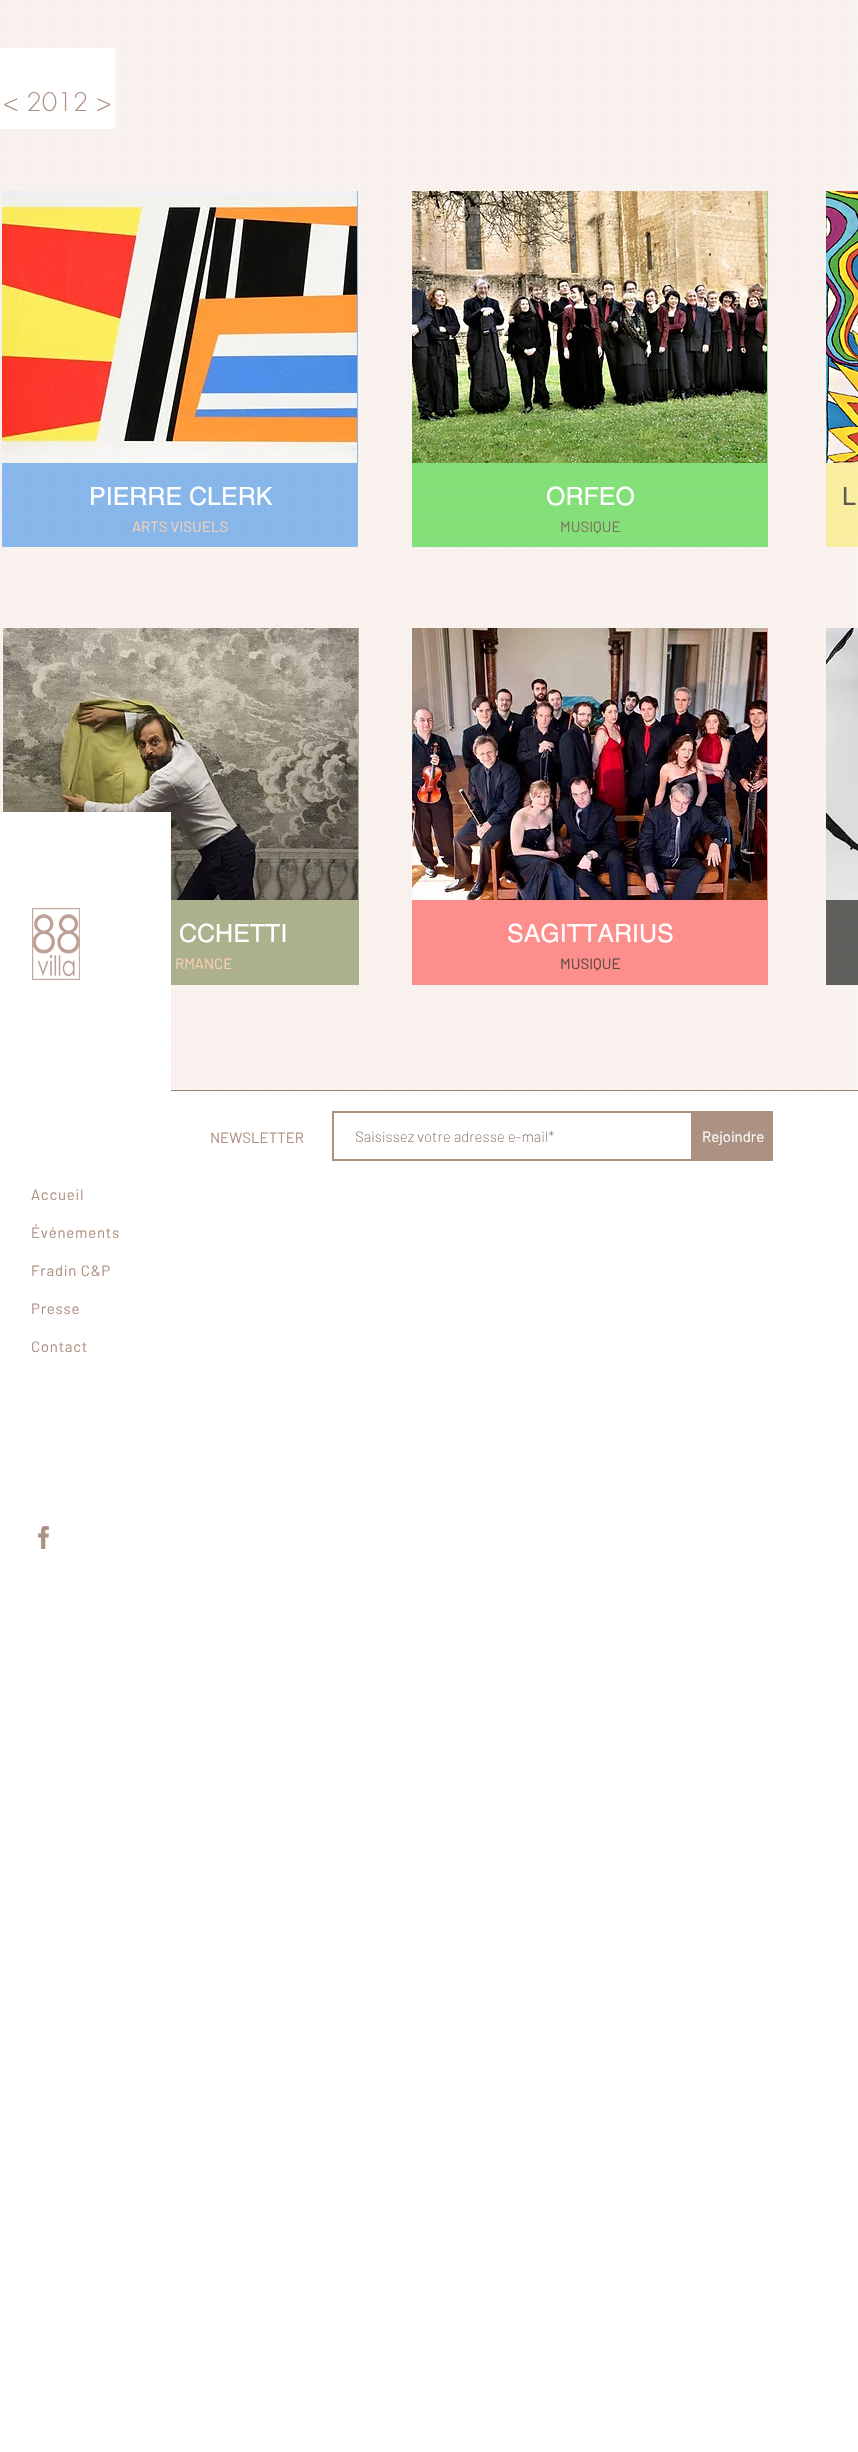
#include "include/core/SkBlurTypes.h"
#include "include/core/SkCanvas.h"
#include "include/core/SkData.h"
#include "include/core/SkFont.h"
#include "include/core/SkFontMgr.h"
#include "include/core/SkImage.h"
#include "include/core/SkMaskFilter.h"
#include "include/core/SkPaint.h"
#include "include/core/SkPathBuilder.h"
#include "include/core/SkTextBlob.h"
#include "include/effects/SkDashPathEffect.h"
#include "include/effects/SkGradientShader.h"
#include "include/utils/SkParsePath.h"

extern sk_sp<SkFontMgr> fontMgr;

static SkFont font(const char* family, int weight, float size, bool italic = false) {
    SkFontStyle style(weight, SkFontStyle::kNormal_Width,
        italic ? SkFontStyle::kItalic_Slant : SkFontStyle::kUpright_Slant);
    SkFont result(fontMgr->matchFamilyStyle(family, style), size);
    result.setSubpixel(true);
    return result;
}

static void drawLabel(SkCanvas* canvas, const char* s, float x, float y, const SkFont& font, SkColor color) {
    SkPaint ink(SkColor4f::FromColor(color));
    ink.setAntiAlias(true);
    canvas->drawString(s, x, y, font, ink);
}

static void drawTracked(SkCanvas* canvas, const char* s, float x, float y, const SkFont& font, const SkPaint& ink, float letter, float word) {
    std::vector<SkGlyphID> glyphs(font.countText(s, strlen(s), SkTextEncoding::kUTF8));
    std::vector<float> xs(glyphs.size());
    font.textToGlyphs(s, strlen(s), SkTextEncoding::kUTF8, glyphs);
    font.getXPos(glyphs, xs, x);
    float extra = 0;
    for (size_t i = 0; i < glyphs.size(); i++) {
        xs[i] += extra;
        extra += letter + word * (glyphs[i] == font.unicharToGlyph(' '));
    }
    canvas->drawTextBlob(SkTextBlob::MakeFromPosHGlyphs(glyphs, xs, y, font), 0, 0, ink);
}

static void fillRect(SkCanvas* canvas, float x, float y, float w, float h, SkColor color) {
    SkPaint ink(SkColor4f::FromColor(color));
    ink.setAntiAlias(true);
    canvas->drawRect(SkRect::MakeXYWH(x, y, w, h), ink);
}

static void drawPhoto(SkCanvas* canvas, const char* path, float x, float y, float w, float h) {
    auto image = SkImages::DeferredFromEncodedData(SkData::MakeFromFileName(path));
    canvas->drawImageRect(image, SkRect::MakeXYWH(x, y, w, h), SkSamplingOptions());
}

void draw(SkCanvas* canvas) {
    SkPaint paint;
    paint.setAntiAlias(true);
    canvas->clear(0xFFFFFFFF);
    fillRect(canvas, 0, 0, 858, 1090, 0xFFF7EEE9);
    drawPhoto(canvas, "assets/img1.png", 0, 0, 858, 1090);
    fillRect(canvas, 0, 48, 115, 81, 0xFFFFFFFF);
    SkFont font1 = font("futura", 300, 25);
    drawLabel(canvas, "< 2012 >", 3, 111, font1, 0xFFAD9182);
    fillRect(canvas, 2, 191, 356, 356, 0x913189E7);
    drawPhoto(canvas, "assets/img2.png", 2, 191, 355, 272);
    SkFont font2 = font("helvetica", 400, 25);
    drawLabel(canvas, "PIERRE CLERK", 89, 505, font2, 0xFFFFFFFF);
    SkFont font3 = font("Barlow", 400, 15);
    drawLabel(canvas, "ARTS VISUELS", 132, 532, font3, 0xFFF9D1B4);
    fillRect(canvas, 412, 191, 356, 356, 0x8F28D31D);
    drawPhoto(canvas, "assets/img3.png", 412, 191, 355, 272);
    drawLabel(canvas, "ORFEO", 546, 505, font2, 0xFFFFFFFF);
    drawLabel(canvas, "MUSIQUE", 560, 532, font3, 0xFF826D61);
    fillRect(canvas, 826, 463, 32, 84, 0x8FFAEC62);
    drawPhoto(canvas, "assets/img4.png", 826, 191, 32, 272);
    paint.setColor(0xFF595959);
    drawTracked(canvas, "L", 842, 505, font2, paint, -1, 0);
    fillRect(canvas, 171, 628, 188, 357, 0x8F707C40);
    drawPhoto(canvas, "assets/img5.png", 3, 628, 355, 272);
    drawLabel(canvas, "CCHETTI", 179, 942, font2, 0xFFFFFFFF);
    drawLabel(canvas, "RMANCE", 175, 969, font3, 0xFFF9D1B4);
    fillRect(canvas, 412, 628, 356, 357, 0x8FFF4040);
    drawPhoto(canvas, "assets/img6.png", 412, 628, 355, 272);
    drawLabel(canvas, "SAGITTARIUS", 507, 942, font2, 0xFFFFFFFF);
    drawLabel(canvas, "MUSIQUE", 560, 969, font3, 0xFF574941);
    drawPhoto(canvas, "assets/img7.png", 826, 628, 32, 272);
    fillRect(canvas, 826, 900, 32, 85, 0x9C000000);
    fillRect(canvas, 171, 1090, 687, 1, 0xFF99877D);
    drawLabel(canvas, "NEWSLETTER", 210, 1143, font3, 0xFFAD9182);
    paint.setStroke(true);
    paint.setStrokeWidth(2);
    paint.setColor(0xFFAD9182);
    canvas->drawRect(SkRect::MakeXYWH(333, 1112, 359, 48), paint);
    SkFont font4 = font("Barlow", 200, 15);
    drawLabel(canvas, "Saisissez votre adresse e-mail*", 355, 1142, font4, 0xFF826D61);
    fillRect(canvas, 693, 1111, 80, 50, 0xFFAD9182);
    drawLabel(canvas, "Rejoindre", 702, 1142, font3, 0xFFFFFFFF);
    fillRect(canvas, 0, 812, 171, 278, 0xFFFFFFFF);
    drawPhoto(canvas, "assets/img8.png", 32, 908, 48, 72);
    paint.setStroke(false);
    drawTracked(canvas, "Accueil", 31, 1200, font3, paint, 0.75f, 0);
    drawTracked(canvas, "Événements", 31, 1238, font3, paint, 0.75f, 0);
    drawTracked(canvas, "Fradin C&P", 31, 1276, font3, paint, 0.75f, 0);
    drawTracked(canvas, "Presse", 31, 1314, font3, paint, 0.75f, 0);
    drawTracked(canvas, "Contact", 31, 1352, font3, paint, 0.75f, 0);
    drawPhoto(canvas, "assets/img9.png", 37, 1526, 12, 23);
}
